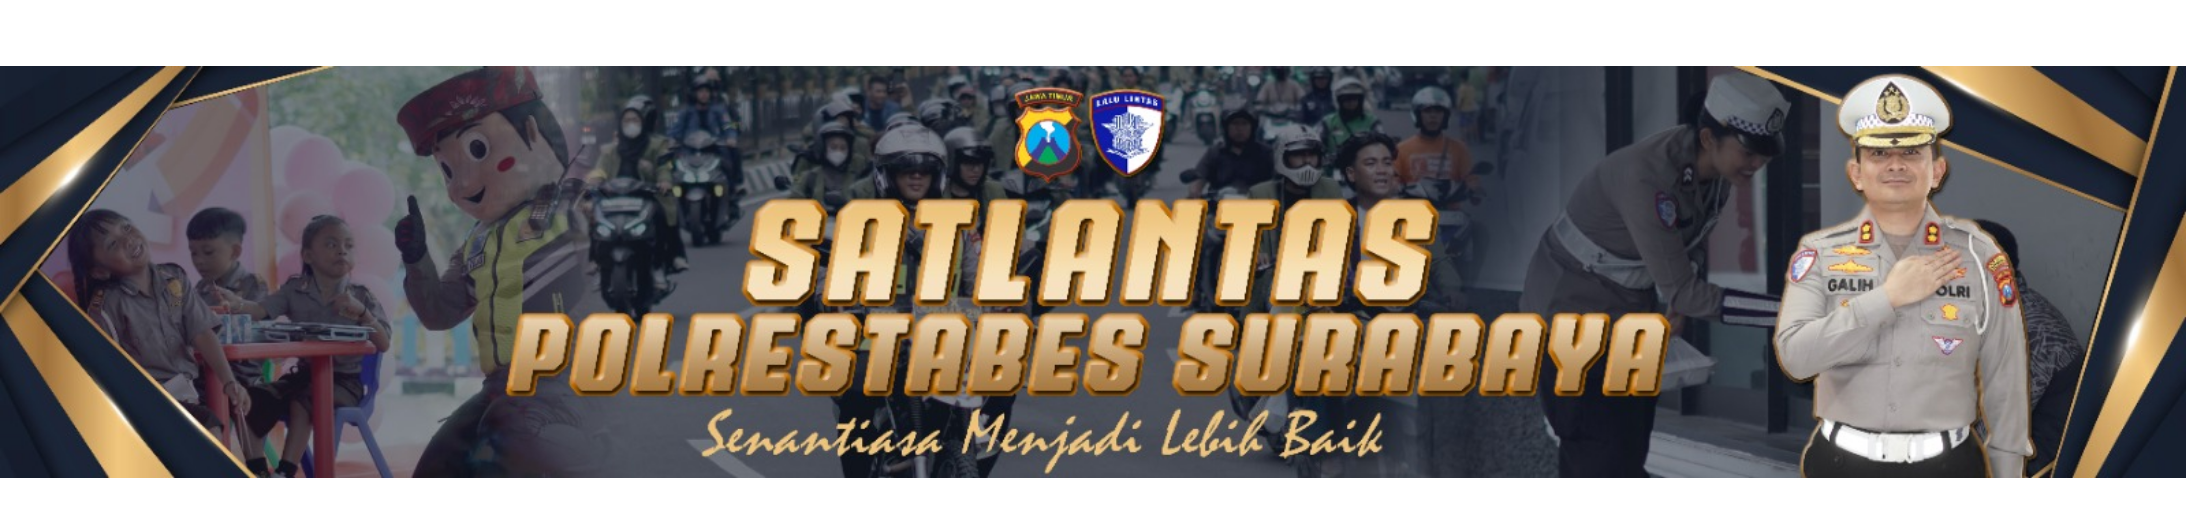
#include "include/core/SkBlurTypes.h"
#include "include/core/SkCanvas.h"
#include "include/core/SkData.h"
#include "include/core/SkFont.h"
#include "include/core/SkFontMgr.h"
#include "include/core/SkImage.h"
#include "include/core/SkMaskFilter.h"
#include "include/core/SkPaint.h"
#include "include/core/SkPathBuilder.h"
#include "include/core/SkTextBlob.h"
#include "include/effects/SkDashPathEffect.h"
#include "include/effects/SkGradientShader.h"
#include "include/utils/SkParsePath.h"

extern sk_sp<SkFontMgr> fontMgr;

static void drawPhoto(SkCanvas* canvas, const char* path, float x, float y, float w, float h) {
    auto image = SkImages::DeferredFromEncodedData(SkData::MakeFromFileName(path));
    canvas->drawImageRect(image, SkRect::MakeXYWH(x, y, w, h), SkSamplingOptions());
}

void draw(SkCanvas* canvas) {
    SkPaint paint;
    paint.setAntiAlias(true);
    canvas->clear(0xFFFFFFFF);
    drawPhoto(canvas, "assets/img1.png", 0, 66, 2186, 412);
}
